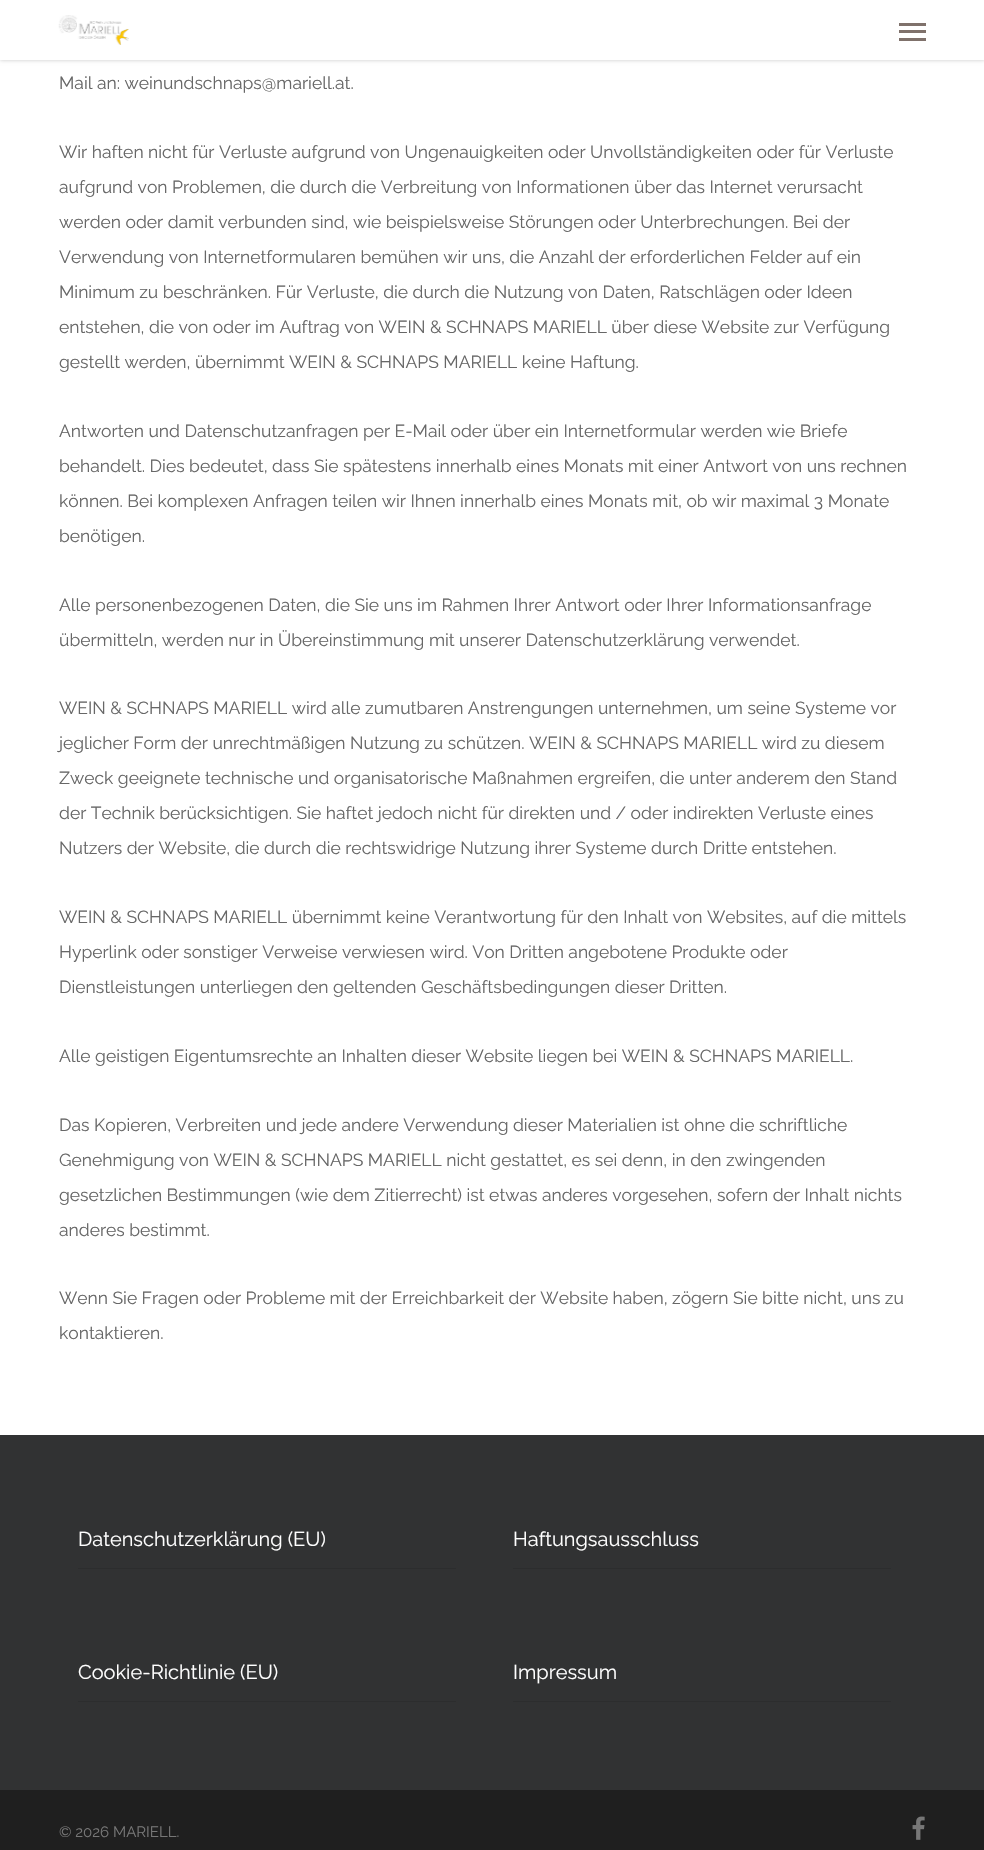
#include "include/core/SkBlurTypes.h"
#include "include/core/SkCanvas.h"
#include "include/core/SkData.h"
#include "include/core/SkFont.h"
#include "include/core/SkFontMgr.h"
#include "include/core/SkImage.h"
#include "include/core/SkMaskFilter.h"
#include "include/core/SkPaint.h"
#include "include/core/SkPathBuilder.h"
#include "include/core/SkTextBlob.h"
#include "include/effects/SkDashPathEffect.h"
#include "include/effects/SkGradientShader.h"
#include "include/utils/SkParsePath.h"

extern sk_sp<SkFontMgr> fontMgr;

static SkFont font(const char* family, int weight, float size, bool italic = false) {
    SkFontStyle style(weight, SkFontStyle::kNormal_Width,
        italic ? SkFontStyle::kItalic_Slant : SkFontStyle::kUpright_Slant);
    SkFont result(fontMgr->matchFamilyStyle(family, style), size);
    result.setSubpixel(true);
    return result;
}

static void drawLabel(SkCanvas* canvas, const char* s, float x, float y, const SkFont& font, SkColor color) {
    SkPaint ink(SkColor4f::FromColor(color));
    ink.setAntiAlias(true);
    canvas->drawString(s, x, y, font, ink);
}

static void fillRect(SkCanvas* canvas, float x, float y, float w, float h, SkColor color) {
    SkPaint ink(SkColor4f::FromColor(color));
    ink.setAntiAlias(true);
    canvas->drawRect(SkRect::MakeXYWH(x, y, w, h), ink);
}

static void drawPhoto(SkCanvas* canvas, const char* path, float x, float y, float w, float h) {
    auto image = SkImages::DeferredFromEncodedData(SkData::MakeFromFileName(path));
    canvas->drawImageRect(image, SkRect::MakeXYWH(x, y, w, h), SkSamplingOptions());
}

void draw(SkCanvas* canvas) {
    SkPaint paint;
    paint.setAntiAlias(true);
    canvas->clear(0xFFFFFFFF);
    paint.setColor(0x38000000);
    paint.setMaskFilter(SkMaskFilter::MakeBlur(kNormal_SkBlurStyle, 2));
    canvas->drawRect(SkRect::MakeXYWH(0, 0, 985, 60), paint);
    paint.setMaskFilter(nullptr);
    fillRect(canvas, 0, 0, 984, 60, 0xFFFFFFFF);
    drawPhoto(canvas, "assets/img1.png", 58, 15, 71, 30);
    fillRect(canvas, 899, 23, 27, 3, 0xFF7F716B);
    fillRect(canvas, 899, 38, 27, 3, 0xFF7F716B);
    fillRect(canvas, 899, 30, 27, 3, 0xFF7F716B);
    SkFont font1 = font("Raleway", 100, 17.5f);
    drawLabel(canvas, "Mail an: weinundschnaps@mariell.at.", 59, 89, font1, 0xFF676767);
    drawLabel(canvas, "Wir haften nicht für Verluste aufgrund von Ungenauigkeiten oder Unvollständigkeiten oder für Verluste", 59, 158, font1, 0xFF676767);
    drawLabel(canvas, "aufgrund von Problemen, die durch die Verbreitung von Informationen über das Internet verursacht", 59, 193, font1, 0xFF676767);
    drawLabel(canvas, "werden oder damit verbunden sind, wie beispielsweise Störungen oder Unterbrechungen. Bei der", 59, 228, font1, 0xFF676767);
    drawLabel(canvas, "Verwendung von Internetformularen bemühen wir uns, die Anzahl der erforderlichen Felder auf ein", 59, 263, font1, 0xFF676767);
    drawLabel(canvas, "Minimum zu beschränken. Für Verluste, die durch die Nutzung von Daten, Ratschlägen oder Ideen", 59, 298, font1, 0xFF676767);
    drawLabel(canvas, "entstehen, die von oder im Auftrag von WEIN & SCHNAPS MARIELL über diese Website zur Verfügung", 59, 333, font1, 0xFF676767);
    drawLabel(canvas, "gestellt werden, übernimmt WEIN & SCHNAPS MARIELL keine Haftung.", 59, 368, font1, 0xFF676767);
    drawLabel(canvas, "Antworten und Datenschutzanfragen per E-Mail oder über ein Internetformular werden wie Briefe", 59, 437, font1, 0xFF676767);
    drawLabel(canvas, "behandelt. Dies bedeutet, dass Sie spätestens innerhalb eines Monats mit einer Antwort von uns rechnen", 59, 472, font1, 0xFF676767);
    drawLabel(canvas, "können. Bei komplexen Anfragen teilen wir Ihnen innerhalb eines Monats mit, ob wir maximal 3 Monate", 59, 507, font1, 0xFF676767);
    drawLabel(canvas, "benötigen.", 59, 542, font1, 0xFF676767);
    drawLabel(canvas, "Alle personenbezogenen Daten, die Sie uns im Rahmen Ihrer Antwort oder Ihrer Informationsanfrage", 59, 611, font1, 0xFF676767);
    drawLabel(canvas, "übermitteln, werden nur in Übereinstimmung mit unserer Datenschutzerklärung verwendet.", 59, 646, font1, 0xFF676767);
    drawLabel(canvas, "WEIN & SCHNAPS MARIELL wird alle zumutbaren Anstrengungen unternehmen, um seine Systeme vor", 59, 714, font1, 0xFF676767);
    drawLabel(canvas, "jeglicher Form der unrechtmäßigen Nutzung zu schützen. WEIN & SCHNAPS MARIELL wird zu diesem", 59, 749, font1, 0xFF676767);
    drawLabel(canvas, "Zweck geeignete technische und organisatorische Maßnahmen ergreifen, die unter anderem den Stand", 59, 784, font1, 0xFF676767);
    drawLabel(canvas, "der Technik berücksichtigen. Sie haftet jedoch nicht für direkten und / oder indirekten Verluste eines", 59, 819, font1, 0xFF676767);
    drawLabel(canvas, "Nutzers der Website, die durch die rechtswidrige Nutzung ihrer Systeme durch Dritte entstehen.", 59, 854, font1, 0xFF676767);
    drawLabel(canvas, "WEIN & SCHNAPS MARIELL übernimmt keine Verantwortung für den Inhalt von Websites, auf die mittels", 59, 923, font1, 0xFF676767);
    drawLabel(canvas, "Hyperlink oder sonstiger Verweise verwiesen wird. Von Dritten angebotene Produkte oder", 59, 958, font1, 0xFF676767);
    drawLabel(canvas, "Dienstleistungen unterliegen den geltenden Geschäftsbedingungen dieser Dritten.", 59, 993, font1, 0xFF676767);
    drawLabel(canvas, "Alle geistigen Eigentumsrechte an Inhalten dieser Website liegen bei WEIN & SCHNAPS MARIELL.", 59, 1062, font1, 0xFF676767);
    drawLabel(canvas, "Das Kopieren, Verbreiten und jede andere Verwendung dieser Materialien ist ohne die schriftliche", 59, 1131, font1, 0xFF676767);
    drawLabel(canvas, "Genehmigung von WEIN & SCHNAPS MARIELL nicht gestattet, es sei denn, in den zwingenden", 59, 1166, font1, 0xFF676767);
    drawLabel(canvas, "gesetzlichen Bestimmungen (wie dem Zitierrecht) ist etwas anderes vorgesehen, sofern der Inhalt nichts", 59, 1201, font1, 0xFF676767);
    drawLabel(canvas, "anderes bestimmt.", 59, 1236, font1, 0xFF676767);
    drawLabel(canvas, "Wenn Sie Fragen oder Probleme mit der Erreichbarkeit der Website haben, zögern Sie bitte nicht, uns zu", 59, 1304, font1, 0xFF676767);
    drawLabel(canvas, "kontaktieren.", 59, 1339, font1, 0xFF676767);
    fillRect(canvas, 0, 1435, 984, 355, 0xFF313233);
    fillRect(canvas, 78, 1568, 378, 1, 0xFF2C2D2E);
    SkFont font2 = font("Raleway", 100, 20);
    drawLabel(canvas, "Datenschutzerklärung (EU)", 78, 1546, font2, 0xFFFFFFFF);
    fillRect(canvas, 513, 1568, 378, 1, 0xFF2C2D2E);
    drawLabel(canvas, "Haftungsausschluss", 513, 1546, font2, 0xFFFFFFFF);
    fillRect(canvas, 78, 1701, 378, 1, 0xFF2C2D2E);
    drawLabel(canvas, "Cookie-Richtlinie (EU)", 78, 1679, font2, 0xFFFFFFFF);
    fillRect(canvas, 513, 1701, 378, 1, 0xFF2C2D2E);
    drawLabel(canvas, "Impressum", 513, 1679, font2, 0xFFFFFFFF);
    fillRect(canvas, 0, 1790, 984, 60, 0xFF1F1F1F);
    SkFont font3 = font("Raleway", 100, 15);
    drawLabel(canvas, "© 2026 MARIELL.", 59, 1837, font3, 0xFF777777);
    drawPhoto(canvas, "assets/img2.png", 912, 1816, 13, 24);
}
